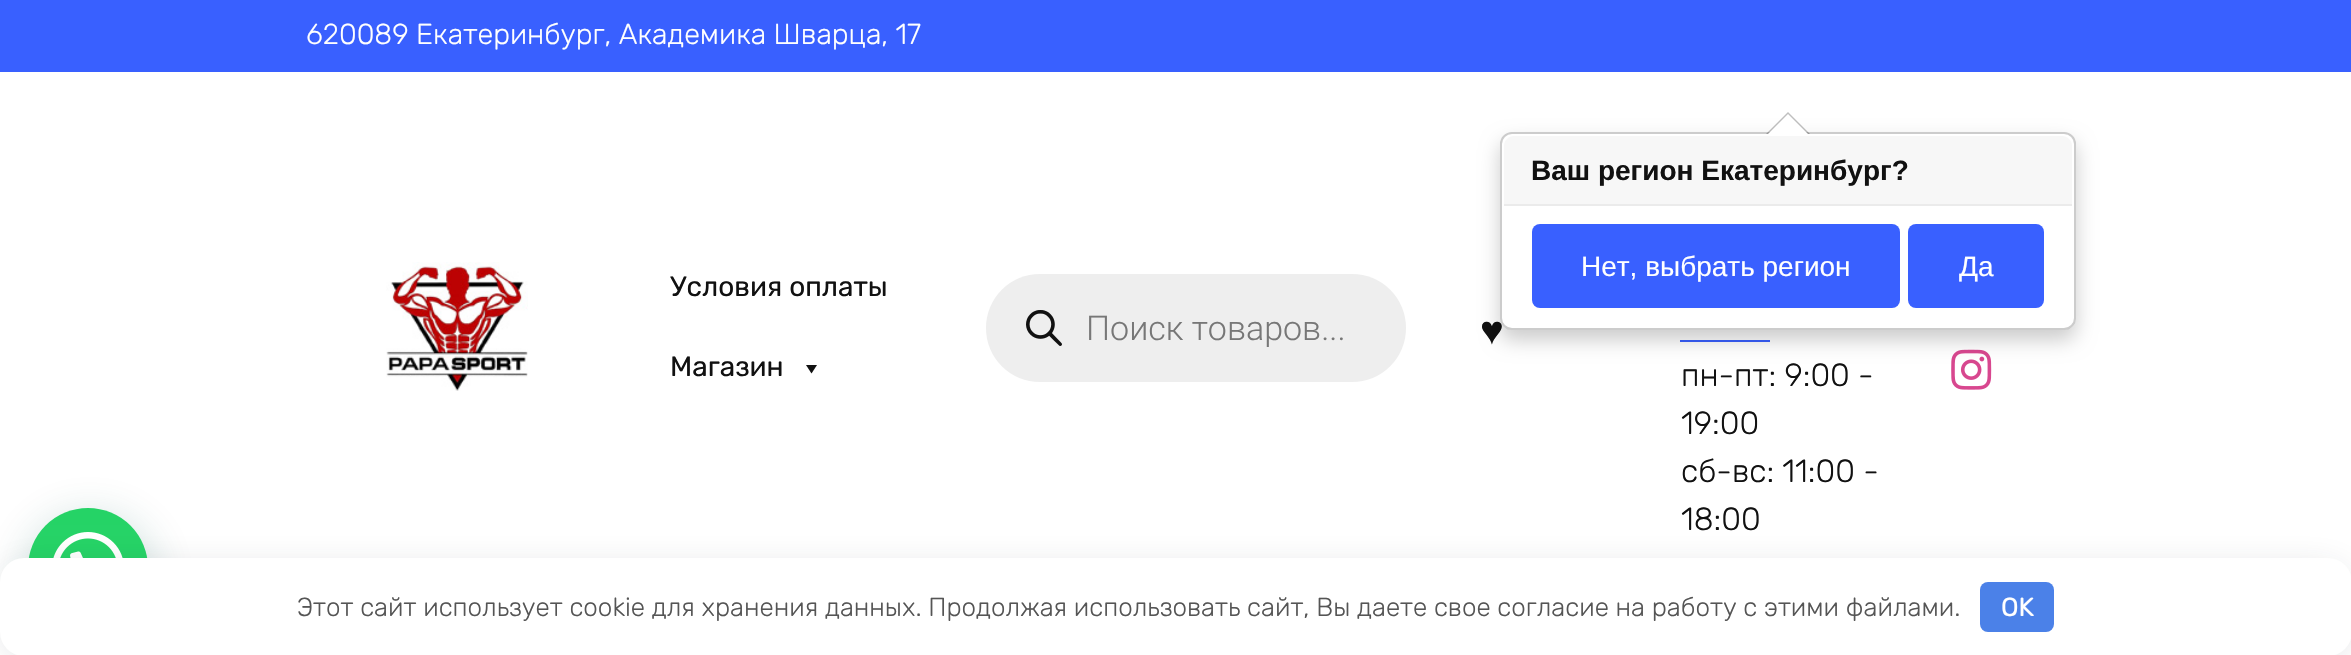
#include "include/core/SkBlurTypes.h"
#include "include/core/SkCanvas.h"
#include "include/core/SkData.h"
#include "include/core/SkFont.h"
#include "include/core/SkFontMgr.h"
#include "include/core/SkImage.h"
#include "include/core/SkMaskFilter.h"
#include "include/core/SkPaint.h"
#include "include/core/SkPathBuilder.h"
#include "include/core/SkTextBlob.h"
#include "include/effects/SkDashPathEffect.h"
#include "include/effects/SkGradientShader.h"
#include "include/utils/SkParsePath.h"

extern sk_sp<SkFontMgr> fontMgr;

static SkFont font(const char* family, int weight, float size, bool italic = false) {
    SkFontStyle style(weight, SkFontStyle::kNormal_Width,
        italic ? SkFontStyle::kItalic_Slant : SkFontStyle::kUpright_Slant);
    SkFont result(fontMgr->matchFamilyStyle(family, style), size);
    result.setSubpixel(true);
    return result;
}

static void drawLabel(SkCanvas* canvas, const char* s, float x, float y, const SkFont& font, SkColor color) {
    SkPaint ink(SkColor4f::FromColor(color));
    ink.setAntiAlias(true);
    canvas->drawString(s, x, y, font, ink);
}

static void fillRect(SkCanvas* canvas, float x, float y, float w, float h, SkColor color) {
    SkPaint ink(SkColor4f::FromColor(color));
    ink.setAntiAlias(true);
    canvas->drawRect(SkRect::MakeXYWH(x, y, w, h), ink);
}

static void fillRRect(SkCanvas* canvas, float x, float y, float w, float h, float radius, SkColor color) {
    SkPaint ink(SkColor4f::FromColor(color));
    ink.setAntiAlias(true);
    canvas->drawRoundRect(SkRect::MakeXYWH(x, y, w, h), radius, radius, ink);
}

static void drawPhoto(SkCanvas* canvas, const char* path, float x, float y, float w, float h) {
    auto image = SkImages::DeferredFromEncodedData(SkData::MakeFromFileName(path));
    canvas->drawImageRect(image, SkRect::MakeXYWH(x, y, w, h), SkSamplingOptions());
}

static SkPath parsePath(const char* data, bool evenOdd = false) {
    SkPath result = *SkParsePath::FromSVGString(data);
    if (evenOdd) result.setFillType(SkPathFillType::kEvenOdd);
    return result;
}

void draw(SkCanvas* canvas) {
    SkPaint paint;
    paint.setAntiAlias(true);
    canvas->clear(0xFFFFFFFF);
    paint.setColor(0x3D075E54);
    paint.setMaskFilter(SkMaskFilter::MakeBlur(kNormal_SkBlurStyle, 24));
    canvas->drawRoundRect(SkRect::MakeXYWH(30, 520, 120, 120), 60, 60, paint);
    paint.setMaskFilter(nullptr);
    paint.setColor(0xFF25D366);
    canvas->drawCircle(88, 568, 60, paint);
    drawPhoto(canvas, "assets/img1.png", 53, 532, 70, 26);
    fillRect(canvas, 0, 0, 2351, 72, 0xFF3960FF);
    SkFont font1 = font("Rubik", 300, 28.8f);
    drawLabel(canvas, "620089 Екатеринбург, Академика Шварца, 17", 306, 44, font1, 0xFFFFFFFF);
    drawPhoto(canvas, "assets/img2.png", 386, 262, 142, 129);
    SkFont font2 = font("Rubik", 400, 28);
    drawLabel(canvas, "Условия оплаты", 670, 296, font2, 0xFF111111);
    drawLabel(canvas, "Магазин", 670, 376, font2, 0xFF111111);
    paint.setColor(0xFF111111);
    canvas->drawPath(parsePath("M817 365L811.5 373.5L806 365Z"), paint);
    fillRRect(canvas, 986, 274, 420, 108, 54, 0xFFEEEEEE);
    drawPhoto(canvas, "assets/img3.png", 1026, 310, 36, 36);
    SkFont font3 = font("Roboto", 300, 34);
    drawLabel(canvas, "Поиск товаров...", 1086, 340, font3, 0xFF777777);
    SkFont font4 = font("Liberation Serif", 400, 40);
    drawLabel(canvas, "♥", 1480, 344, font4, 0xFF111111);
    fillRect(canvas, 1680, 340, 90, 2, 0xFF3960FF);
    drawPhoto(canvas, "assets/img4.png", 1951, 349, 41, 41);
    canvas->save();
    canvas->clipPath(parsePath("M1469 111H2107V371H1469ZM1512 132H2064C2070.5 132 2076 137.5 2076 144V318C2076 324.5 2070.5 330 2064 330H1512C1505.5 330 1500 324.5 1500 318V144C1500 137.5 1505.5 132 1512 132Z", true), true);
    paint.setColor(0x33000000);
    paint.setMaskFilter(SkMaskFilter::MakeBlur(kNormal_SkBlurStyle, 10));
    canvas->drawRoundRect(SkRect::MakeXYWH(1500, 142, 576, 198), 12, 12, paint);
    paint.setMaskFilter(nullptr);
    canvas->restore();
    paint.setStroke(true);
    paint.setStrokeWidth(2);
    canvas->drawRoundRect(SkRect::MakeXYWH(1501, 133, 574, 196), 11, 11, paint);
    paint.setStroke(false);
    paint.setColor(0x40000000);
    canvas->drawPath(parsePath("M1810 134H1766L1788 112Z"), paint);
    paint.setColor(0xFFFFFFFF);
    canvas->drawPath(parsePath("M1808 134H1768L1788 114Z"), paint);
    paint.setColor(0xFFF7F7F7);
    canvas->drawPath(parsePath("M1514 136H2062C2067.5 136 2072 140.5 2072 146V206H1504V146C1504 140.5 1508.5 136 1514 136Z"), paint);
    fillRect(canvas, 1504, 204, 568, 2, 0xFFEBEBEB);
    SkFont font5 = font("Liberation Sans", 700, 28);
    drawLabel(canvas, "Ваш регион Екатеринбург?", 1531, 180, font5, 0xFF111111);
    fillRRect(canvas, 1532, 224, 368, 84, 8, 0xFF3960FF);
    SkFont font6 = font("Liberation Sans", 400, 28);
    drawLabel(canvas, "Нет, выбрать регион", 1581, 276, font6, 0xFFFFFFFF);
    fillRRect(canvas, 1908, 224, 136, 84, 8, 0xFF3960FF);
    drawLabel(canvas, "Да", 1959, 276, font6, 0xFFFFFFFF);
    SkFont font7 = font("Rubik", 300, 32);
    drawLabel(canvas, "пн-пт: 9:00 -", 1681, 386, font7, 0xFF111111);
    drawLabel(canvas, "19:00", 1681, 434, font7, 0xFF111111);
    drawLabel(canvas, "сб-вс: 11:00 -", 1681, 482, font7, 0xFF111111);
    drawLabel(canvas, "18:00", 1681, 530, font7, 0xFF111111);
    paint.setColor(0x33292C38);
    paint.setMaskFilter(SkMaskFilter::MakeBlur(kNormal_SkBlurStyle, 20));
    canvas->drawRoundRect(SkRect::MakeXYWH(10, 574, 2332, 78), 14, 14, paint);
    paint.setMaskFilter(nullptr);
    fillRRect(canvas, 0, 558, 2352, 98, 24, 0xFFFFFFFF);
    SkFont font8 = font("Rubik", 300, 26);
    drawLabel(canvas, "Этот сайт использует cookie для хранения данных. Продолжая использовать сайт, Вы даете свое согласие на работу с этими файлами.", 297, 616, font8, 0xFF555555);
    fillRRect(canvas, 1980, 582, 74, 50, 8, 0xFF4B81E8);
    SkFont font9 = font("Rubik", 400, 26);
    drawLabel(canvas, "OK", 2001, 616, font9, 0xFFFFFFFF);
}
